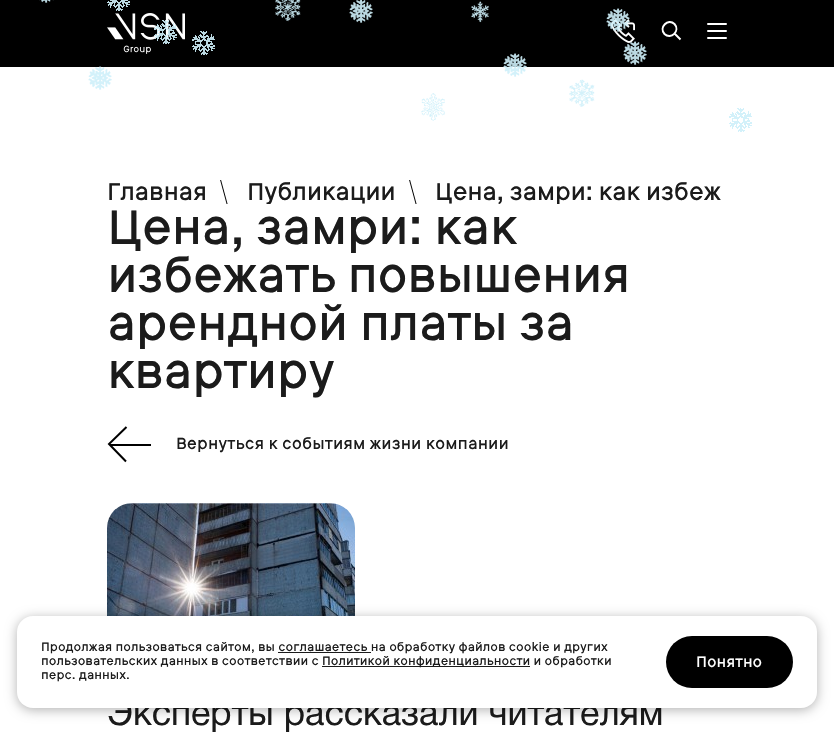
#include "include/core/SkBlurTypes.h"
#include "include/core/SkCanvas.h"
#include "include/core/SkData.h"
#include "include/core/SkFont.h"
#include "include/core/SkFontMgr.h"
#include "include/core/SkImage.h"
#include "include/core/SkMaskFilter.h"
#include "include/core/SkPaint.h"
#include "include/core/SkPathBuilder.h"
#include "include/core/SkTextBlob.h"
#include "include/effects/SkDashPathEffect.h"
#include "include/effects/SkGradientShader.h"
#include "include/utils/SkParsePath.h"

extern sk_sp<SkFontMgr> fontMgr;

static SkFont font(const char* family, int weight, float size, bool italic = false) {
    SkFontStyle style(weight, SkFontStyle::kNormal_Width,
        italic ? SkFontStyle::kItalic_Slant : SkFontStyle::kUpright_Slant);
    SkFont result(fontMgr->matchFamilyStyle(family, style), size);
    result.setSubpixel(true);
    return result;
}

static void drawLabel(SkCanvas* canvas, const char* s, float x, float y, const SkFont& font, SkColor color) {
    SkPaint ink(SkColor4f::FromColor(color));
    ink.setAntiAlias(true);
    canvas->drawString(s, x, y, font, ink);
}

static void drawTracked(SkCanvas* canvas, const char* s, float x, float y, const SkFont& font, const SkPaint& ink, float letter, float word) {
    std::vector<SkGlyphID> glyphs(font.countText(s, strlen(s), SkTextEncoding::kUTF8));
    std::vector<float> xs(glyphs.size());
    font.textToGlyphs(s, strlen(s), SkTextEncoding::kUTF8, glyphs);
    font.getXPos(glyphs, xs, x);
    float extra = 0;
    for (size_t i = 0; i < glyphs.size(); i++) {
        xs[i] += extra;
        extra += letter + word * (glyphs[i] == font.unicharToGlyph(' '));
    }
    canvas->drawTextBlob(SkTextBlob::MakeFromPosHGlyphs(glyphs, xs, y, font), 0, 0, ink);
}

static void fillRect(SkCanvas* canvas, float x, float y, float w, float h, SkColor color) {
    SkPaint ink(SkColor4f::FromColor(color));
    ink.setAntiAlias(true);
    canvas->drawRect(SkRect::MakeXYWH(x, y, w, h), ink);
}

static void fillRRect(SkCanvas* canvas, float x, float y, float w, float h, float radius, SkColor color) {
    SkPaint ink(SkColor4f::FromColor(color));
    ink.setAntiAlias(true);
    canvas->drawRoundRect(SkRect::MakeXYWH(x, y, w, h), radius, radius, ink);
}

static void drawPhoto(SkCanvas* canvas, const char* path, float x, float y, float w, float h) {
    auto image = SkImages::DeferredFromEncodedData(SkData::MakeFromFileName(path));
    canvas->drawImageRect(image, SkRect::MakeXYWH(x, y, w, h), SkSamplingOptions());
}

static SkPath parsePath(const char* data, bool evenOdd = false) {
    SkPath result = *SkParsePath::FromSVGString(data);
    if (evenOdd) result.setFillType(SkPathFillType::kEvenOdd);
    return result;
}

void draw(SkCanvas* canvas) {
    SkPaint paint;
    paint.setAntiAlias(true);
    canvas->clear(0xFFFFFFFF);
    fillRect(canvas, 0, 0, 834, 67, 0xFF000000);
    drawPhoto(canvas, "assets/img1.png", 107, 13, 78, 41);
    drawPhoto(canvas, "assets/img2.png", 611, 19, 24, 24);
    paint.setStroke(true);
    paint.setStrokeWidth(2);
    paint.setColor(0xFFFFFFFF);
    canvas->drawPath(parsePath("M674.5 33.5L680.5 39.5M674.5 24C680.5 30.5 671 40.5 664.5 34C658.5 27.5 668 18 674.5 24Z"), paint);
    paint.setStrokeCap(SkPaint::kRound_Cap);
    canvas->drawPath(parsePath("M708 24H726M708 31H726M708 38H726"), paint);
    drawPhoto(canvas, "assets/img3.png", 39, 0, 15, 3);
    drawPhoto(canvas, "assets/img4.png", 88, 66, 24, 24);
    drawPhoto(canvas, "assets/img5.png", 107, 0, 23, 11);
    drawPhoto(canvas, "assets/img6.png", 154, 20, 23, 24);
    drawPhoto(canvas, "assets/img7.png", 192, 31, 23, 24);
    drawPhoto(canvas, "assets/img8.png", 275, 0, 26, 22);
    drawPhoto(canvas, "assets/img9.png", 349, 0, 24, 23);
    drawPhoto(canvas, "assets/img10.png", 421, 93, 24, 28);
    drawPhoto(canvas, "assets/img11.png", 471, 1, 18, 22);
    drawPhoto(canvas, "assets/img12.png", 503, 53, 24, 24);
    drawPhoto(canvas, "assets/img13.png", 569, 79, 26, 28);
    drawPhoto(canvas, "assets/img14.png", 606, 8, 24, 24);
    drawPhoto(canvas, "assets/img15.png", 623, 41, 24, 24);
    drawPhoto(canvas, "assets/img16.png", 729, 108, 23, 24);
    SkFont font1 = font("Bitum", 400, 24);
    paint.setStroke(false);
    paint.setColor(0xFF1B1B1B);
    drawTracked(canvas, "Главная", 107, 200, font1, paint, -0.5f, 0);
    canvas->save();
    canvas->clipRect(SkRect::MakeXYWH(107, 180, 620, 24));
    paint.setColor(0xFF000000);
    canvas->drawPath(parsePath("M219 176H220L233 224H232Z"), paint);
    paint.setColor(0xFF1B1B1B);
    drawTracked(canvas, "Публикации", 247, 200, font1, paint, -0.5f, 0);
    paint.setColor(0xFF000000);
    canvas->drawPath(parsePath("M408 176H409L422 224H421Z"), paint);
    paint.setColor(0xFF1B1B1B);
    drawTracked(canvas, "Цена, замри: как избеж", 435, 200, font1, paint, -0.5f, 0);
    canvas->restore();
    SkFont font2 = font("Bitum", 400, 48);
    drawTracked(canvas, "Цена, замри: как", 107, 244, font2, paint, -1, 0);
    drawTracked(canvas, "избежать повышения", 107, 292, font2, paint, -1, 0);
    drawTracked(canvas, "арендной платы за", 107, 340, font2, paint, -1, 0);
    drawTracked(canvas, "квартиру", 107, 388, font2, paint, -1, 0);
    fillRect(canvas, 110, 444, 41, 2, 0xFF000000);
    paint.setStroke(true);
    paint.setStrokeCap(SkPaint::kButt_Cap);
    paint.setColor(0xFF000000);
    canvas->drawPath(parsePath("M126 461.5L109 444L126.5 427"), paint);
    SkFont font3 = font("Bitum", 400, 16);
    drawLabel(canvas, "Вернуться к событиям жизни компании", 176, 449, font3, 0xFF1B1B1B);
    drawPhoto(canvas, "assets/img17.png", 107, 503, 248, 113);
    SkFont font4 = font("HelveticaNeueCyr", 400, 36);
    drawLabel(canvas, "Эксперты рассказали читателям", 107, 725, font4, 0xFF1B1B1B);
    paint.setStroke(false);
    paint.setColor(0x4D000000);
    paint.setMaskFilter(SkMaskFilter::MakeBlur(kNormal_SkBlurStyle, 6));
    canvas->drawRoundRect(SkRect::MakeXYWH(17, 618, 800, 92), 16, 16, paint);
    paint.setMaskFilter(nullptr);
    fillRRect(canvas, 17, 616, 800, 92, 16, 0xFFFFFFFF);
    SkFont font5 = font("Bitum", 400, 12);
    drawLabel(canvas, "Продолжая пользоваться сайтом, вы соглашаетесь на обработку файлов cookie и других", 41, 651, font5, 0xFF1B1B1B);
    fillRect(canvas, 278, 652, 93, 1, 0xFF1B1B1B);
    drawLabel(canvas, "пользовательских данных в соответствии с", 41, 665, font5, 0xFF1B1B1B);
    fillRect(canvas, 322, 666, 208, 1, 0xFF1B1B1B);
    drawLabel(canvas, "Политикой конфиденциальности и обработки", 322, 665, font5, 0xFF1B1B1B);
    drawLabel(canvas, "перс. данных.", 41, 679, font5, 0xFF1B1B1B);
    fillRRect(canvas, 666, 636, 127, 52, 26, 0xFF000000);
    SkFont font6 = font("Bitum", 400, 15);
    drawLabel(canvas, "Понятно", 696, 667, font6, 0xFFFFFFFF);
}
